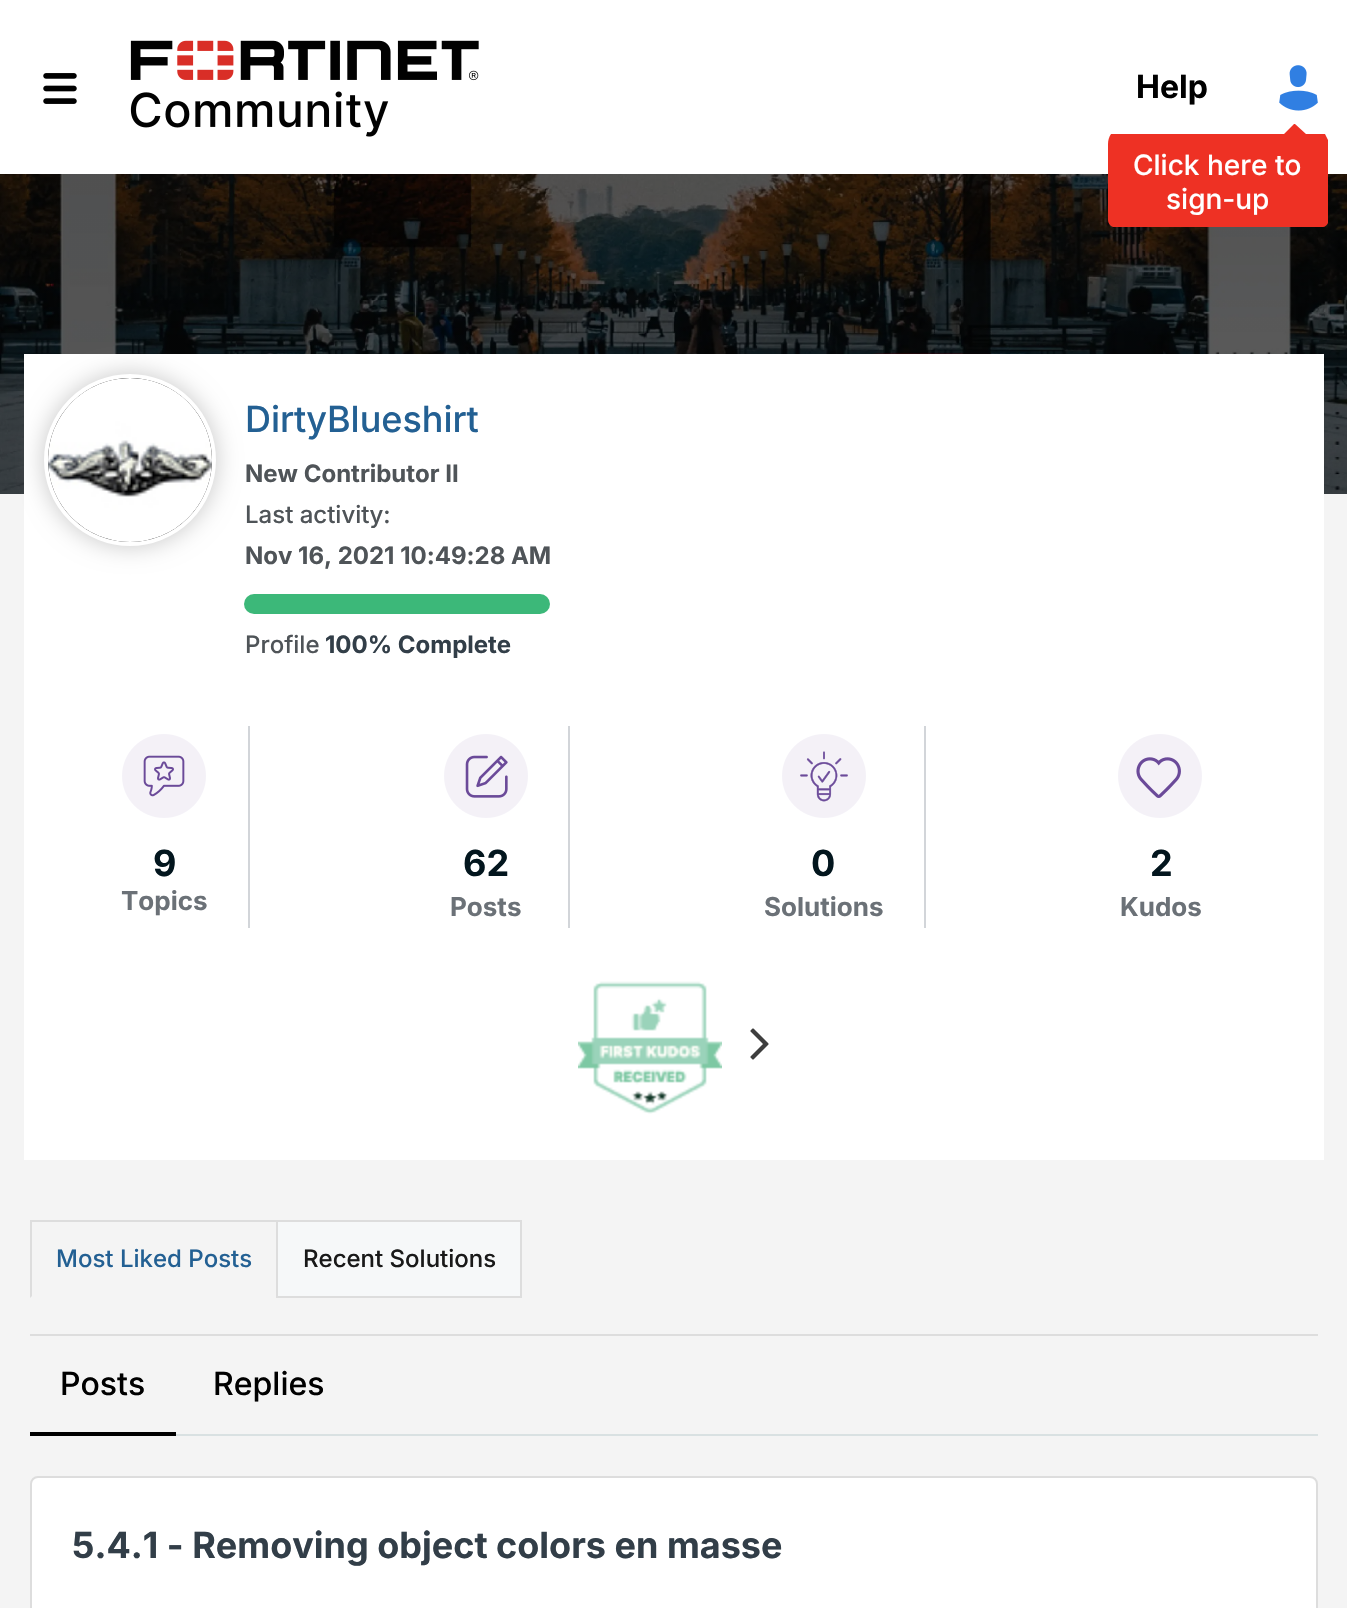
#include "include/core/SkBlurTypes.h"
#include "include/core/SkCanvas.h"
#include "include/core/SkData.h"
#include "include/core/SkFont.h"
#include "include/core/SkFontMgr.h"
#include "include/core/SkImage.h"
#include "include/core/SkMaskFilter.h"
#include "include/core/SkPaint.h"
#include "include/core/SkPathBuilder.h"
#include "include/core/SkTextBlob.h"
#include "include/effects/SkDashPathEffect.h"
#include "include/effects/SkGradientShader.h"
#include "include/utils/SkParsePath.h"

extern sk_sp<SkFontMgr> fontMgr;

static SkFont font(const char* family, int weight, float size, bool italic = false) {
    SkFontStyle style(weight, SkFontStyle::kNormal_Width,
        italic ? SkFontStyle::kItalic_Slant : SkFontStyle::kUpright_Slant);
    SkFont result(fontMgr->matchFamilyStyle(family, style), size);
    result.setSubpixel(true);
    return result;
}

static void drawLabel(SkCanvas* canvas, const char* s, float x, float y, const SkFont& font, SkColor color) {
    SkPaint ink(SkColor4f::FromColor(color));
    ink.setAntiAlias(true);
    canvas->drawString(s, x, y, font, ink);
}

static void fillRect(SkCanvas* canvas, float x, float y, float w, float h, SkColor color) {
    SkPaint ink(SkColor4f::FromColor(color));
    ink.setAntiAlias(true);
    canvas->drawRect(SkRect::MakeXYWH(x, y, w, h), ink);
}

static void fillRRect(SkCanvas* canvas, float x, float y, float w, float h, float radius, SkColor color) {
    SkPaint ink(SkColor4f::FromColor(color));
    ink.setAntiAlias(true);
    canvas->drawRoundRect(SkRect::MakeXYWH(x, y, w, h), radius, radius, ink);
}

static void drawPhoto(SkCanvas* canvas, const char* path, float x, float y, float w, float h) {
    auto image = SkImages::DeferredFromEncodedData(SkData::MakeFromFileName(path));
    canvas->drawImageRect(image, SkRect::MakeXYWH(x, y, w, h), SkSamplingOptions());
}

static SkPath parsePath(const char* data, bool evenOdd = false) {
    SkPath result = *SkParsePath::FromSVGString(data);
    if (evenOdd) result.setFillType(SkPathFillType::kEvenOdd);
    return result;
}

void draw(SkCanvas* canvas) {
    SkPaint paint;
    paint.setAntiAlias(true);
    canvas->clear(0xFFF4F4F4);
    fillRect(canvas, 0, 0, 1347, 174, 0xFFFFFFFF);
    drawPhoto(canvas, "assets/img1.png", 43, 73, 34, 31);
    drawPhoto(canvas, "assets/img2.png", 130, 40, 349, 97);
    SkFont font1 = font("Inter", 700, 32);
    drawLabel(canvas, "Help", 1136, 98, font1, 0xFF000000);
    drawPhoto(canvas, "assets/img3.png", 1279, 65, 39, 46);
    drawPhoto(canvas, "assets/img4.png", 0, 174, 1347, 320);
    paint.setColor(0xFFEE3124);
    canvas->drawPath(parsePath("M1284 134H1111C1109 137 1108 140 1108 144V220C1108 223 1110 226 1113 227H1323C1325 227 1327 225 1328 223V140L1325 134H1306L1295 124H1294Z"), paint);
    SkFont font2 = font("Inter", 500, 28);
    drawLabel(canvas, "Click here to", 1133, 175, font2, 0xFFFFFFFF);
    drawLabel(canvas, "sign-up", 1166, 209, font2, 0xFFFFFFFF);
    fillRect(canvas, 24, 354, 1300, 806, 0xFFFFFFFF);
    paint.setColor(0xFFC7C7C7);
    paint.setMaskFilter(SkMaskFilter::MakeBlur(kNormal_SkBlurStyle, 12));
    canvas->drawRoundRect(SkRect::MakeXYWH(44, 374, 172, 172), 86, 86, paint);
    paint.setMaskFilter(nullptr);
    paint.setColor(0xFF5D5D5D);
    canvas->drawCircle(130, 460, 84, paint);
    paint.setStroke(true);
    paint.setStrokeWidth(4);
    paint.setColor(0xFFFFFFFF);
    canvas->drawCircle(130, 460, 84, paint);
    drawPhoto(canvas, "assets/img5.png", 48, 378, 164, 164);
    SkFont font3 = font("Inter", 500, 36);
    drawLabel(canvas, "DirtyBlueshirt", 245, 432, font3, 0xFF236093);
    SkFont font4 = font("Inter", 700, 24);
    drawLabel(canvas, "New Contributor II", 245, 482, font4, 0xFF4F5458);
    SkFont font5 = font("Inter", 500, 24);
    drawLabel(canvas, "Last activity:", 245, 523, font5, 0xFF4F5458);
    drawLabel(canvas, "Nov 16, 2021 10:49:28 AM", 245, 564, font4, 0xFF4F5458);
    fillRRect(canvas, 244, 594, 306, 20, 10, 0xFF3CB879);
    drawLabel(canvas, "Profile", 245, 653, font5, 0xFF4F5458);
    drawLabel(canvas, "100% Complete", 325, 653, font4, 0xFF323E48);
    fillRect(canvas, 248, 726, 2, 202, 0xFFD2D5D9);
    drawPhoto(canvas, "assets/img6.png", 122, 734, 84, 84);
    SkFont font6 = font("Inter", 700, 36);
    drawLabel(canvas, "9", 153, 876, font6, 0xFF03161E);
    SkFont font7 = font("Inter", 700, 26);
    drawLabel(canvas, "Topics", 121, 910, font7, 0xFF6B7177);
    fillRect(canvas, 568, 726, 2, 202, 0xFFD2D5D9);
    drawPhoto(canvas, "assets/img7.png", 444, 734, 84, 84);
    drawLabel(canvas, "62", 463, 876, font6, 0xFF03161E);
    drawLabel(canvas, "Posts", 450, 916, font7, 0xFF6B7177);
    fillRect(canvas, 924, 726, 2, 202, 0xFFD2D5D9);
    drawPhoto(canvas, "assets/img8.png", 782, 734, 84, 84);
    drawLabel(canvas, "0", 811, 876, font6, 0xFF03161E);
    drawLabel(canvas, "Solutions", 764, 916, font7, 0xFF6B7177);
    drawPhoto(canvas, "assets/img9.png", 1118, 734, 84, 84);
    drawLabel(canvas, "2", 1150, 876, font6, 0xFF03161E);
    drawLabel(canvas, "Kudos", 1120, 916, font7, 0xFF6B7177);
    drawPhoto(canvas, "assets/img10.png", 578, 981, 144, 133);
    drawPhoto(canvas, "assets/img11.png", 750, 1028, 19, 32);
    fillRect(canvas, 30, 1334, 1288, 2, 0xFFDDDDDD);
    fillRect(canvas, 30, 1220, 248, 2, 0xFFDDDDDD);
    paint.setStroke(false);
    paint.setColor(0xFFDDDDDD);
    canvas->drawPath(parsePath("M30 1298V1220L32 1222V1296Z"), paint);
    drawLabel(canvas, "Most Liked Posts", 56, 1267, font5, 0xFF236093);
    paint.setColor(0xFFF6F8F9);
    canvas->drawRect(SkRect::MakeXYWH(277, 1221, 244, 76), paint);
    paint.setStroke(true);
    paint.setStrokeWidth(2);
    paint.setColor(0xFFDDDDDD);
    canvas->drawRect(SkRect::MakeXYWH(277, 1221, 244, 76), paint);
    drawLabel(canvas, "Recent Solutions", 303, 1267, font5, 0xFF191919);
    fillRect(canvas, 176, 1434, 1142, 2, 0xFFD9E1E2);
    fillRect(canvas, 30, 1432, 146, 4, 0xFF000000);
    SkFont font8 = font("Inter", 500, 32);
    drawLabel(canvas, "Posts", 60, 1395, font8, 0xFF000000);
    drawLabel(canvas, "Replies", 213, 1395, font8, 0xFF000000);
    paint.setStroke(false);
    paint.setColor(0xFFFFFFFF);
    canvas->drawRoundRect(SkRect::MakeXYWH(31, 1477, 1286, 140), 7, 7, paint);
    paint.setStroke(true);
    paint.setColor(0xFFDDDDDD);
    canvas->drawRoundRect(SkRect::MakeXYWH(31, 1477, 1286, 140), 7, 7, paint);
    drawLabel(canvas, "5.4.1 - Removing object colors en masse", 72, 1558, font6, 0xFF323E48);
}
